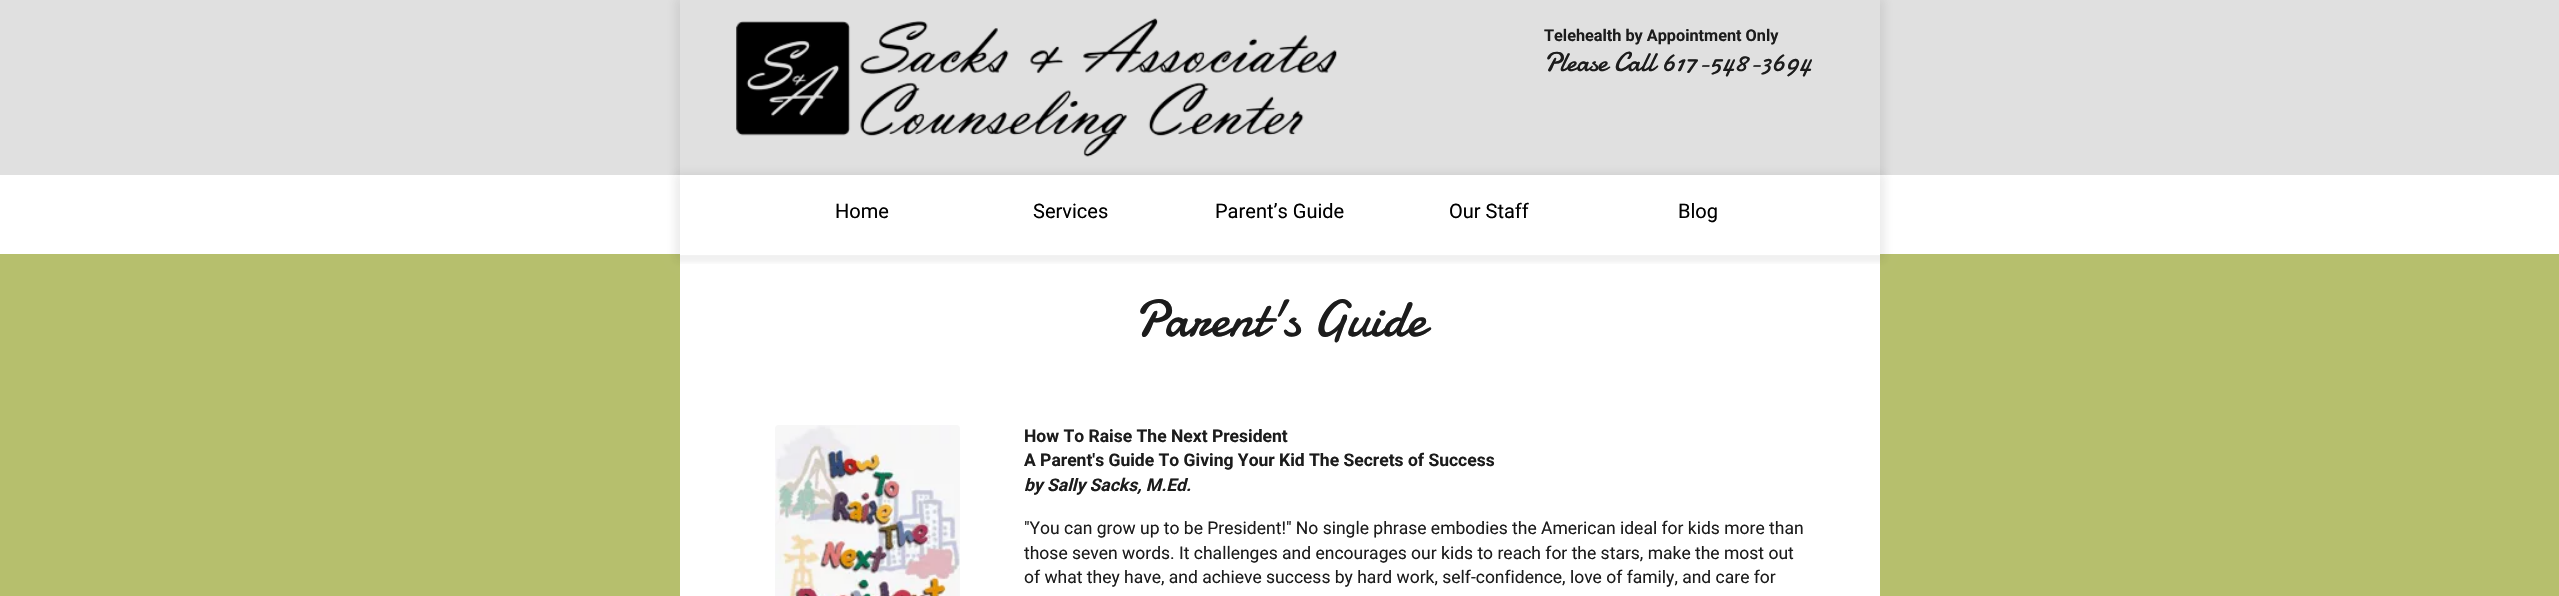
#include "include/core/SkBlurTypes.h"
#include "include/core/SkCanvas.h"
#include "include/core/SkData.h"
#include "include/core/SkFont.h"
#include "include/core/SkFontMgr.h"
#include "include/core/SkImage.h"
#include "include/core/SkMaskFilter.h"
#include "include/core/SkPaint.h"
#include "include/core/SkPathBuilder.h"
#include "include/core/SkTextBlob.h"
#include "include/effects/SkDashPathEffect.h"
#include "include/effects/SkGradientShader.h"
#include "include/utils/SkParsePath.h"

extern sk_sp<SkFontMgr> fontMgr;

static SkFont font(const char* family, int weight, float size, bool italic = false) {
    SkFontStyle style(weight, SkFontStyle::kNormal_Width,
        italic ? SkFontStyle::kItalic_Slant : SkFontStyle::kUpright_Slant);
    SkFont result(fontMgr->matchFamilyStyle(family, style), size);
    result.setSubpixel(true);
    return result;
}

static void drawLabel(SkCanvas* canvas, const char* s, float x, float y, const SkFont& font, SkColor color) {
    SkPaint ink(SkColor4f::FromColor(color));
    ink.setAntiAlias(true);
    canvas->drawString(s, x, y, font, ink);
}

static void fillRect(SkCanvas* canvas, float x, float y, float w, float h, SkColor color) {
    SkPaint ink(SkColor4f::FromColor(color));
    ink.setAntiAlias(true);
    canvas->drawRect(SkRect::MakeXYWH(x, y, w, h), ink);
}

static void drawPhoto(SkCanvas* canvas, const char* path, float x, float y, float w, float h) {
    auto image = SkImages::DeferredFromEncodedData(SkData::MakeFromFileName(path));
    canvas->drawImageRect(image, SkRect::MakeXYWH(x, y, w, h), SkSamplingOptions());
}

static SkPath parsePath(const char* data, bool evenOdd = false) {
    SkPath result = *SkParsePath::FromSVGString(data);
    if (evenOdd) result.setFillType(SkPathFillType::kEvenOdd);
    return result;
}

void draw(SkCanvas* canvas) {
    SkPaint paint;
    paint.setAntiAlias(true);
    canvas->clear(0xFFB6BF6D);
    fillRect(canvas, 0, 0, 2559, 175, 0xFFE0E0E0);
    canvas->save();
    canvas->clipPath(parsePath("M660 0H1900V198H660ZM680 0H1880V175H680Z", true), true);
    paint.setColor(0x17232323);
    paint.setMaskFilter(SkMaskFilter::MakeBlur(kNormal_SkBlurStyle, 4.5f));
    canvas->drawRect(SkRect::MakeXYWH(675, -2, 1210, 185), paint);
    paint.setMaskFilter(nullptr);
    canvas->restore();
    drawPhoto(canvas, "assets/img1.png", 736, 18, 601, 139);
    SkFont font1 = font("Roboto", 700, 16.25f);
    drawLabel(canvas, "Telehealth by Appointment Only", 1544, 41, font1, 0xFF1C1C1C);
    SkFont font2 = font("Damion", 400, 27.5f);
    drawLabel(canvas, "Please Call 617-548-3694", 1544, 71, font2, 0xFF1C1C1C);
    fillRect(canvas, 0, 175, 2559, 79, 0xFFFFFFFF);
    canvas->save();
    canvas->clipPath(parsePath("M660 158H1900V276H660ZM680 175H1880V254H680Z", true), true);
    paint.setMaskFilter(SkMaskFilter::MakeBlur(kNormal_SkBlurStyle, 4.5f));
    canvas->drawRect(SkRect::MakeXYWH(675, 173, 1210, 88), paint);
    paint.setMaskFilter(nullptr);
    canvas->restore();
    SkFont font3 = font("Roboto", 400, 20);
    drawLabel(canvas, "Home", 835, 218, font3, 0xFF000000);
    drawLabel(canvas, "Services", 1033, 218, font3, 0xFF000000);
    drawLabel(canvas, "Parent’s Guide", 1215, 218, font3, 0xFF000000);
    drawLabel(canvas, "Our Staff", 1449, 218, font3, 0xFF000000);
    drawLabel(canvas, "Blog", 1678, 218, font3, 0xFF000000);
    fillRect(canvas, 680, 254, 1200, 342, 0xFFFFFFFF);
    drawPhoto(canvas, "assets/img2.png", 680, 255, 1200, 9);
    SkFont font4 = font("Damion", 400, 52.5f);
    drawLabel(canvas, "Parent's Guide", 1134, 336, font4, 0xFF1C1C1C);
    drawPhoto(canvas, "assets/img3.png", 775, 425, 185, 171);
    SkFont font5 = font("Roboto", 700, 17.5f);
    drawLabel(canvas, "How To Raise The Next President", 1024, 442, font5, 0xFF1C1C1C);
    drawLabel(canvas, "A Parent's Guide To Giving Your Kid The Secrets of Success", 1024, 466, font5, 0xFF1C1C1C);
    SkFont font6 = font("Roboto", 700, 17.5f, true);
    drawLabel(canvas, "by Sally Sacks, M.Ed.", 1024, 491, font6, 0xFF1C1C1C);
    SkFont font7 = font("Roboto", 400, 17.5f);
    drawLabel(canvas, "\"You can grow up to be President!\" No single phrase embodies the American ideal for kids more than", 1024, 534, font7, 0xFF1C1C1C);
    drawLabel(canvas, "those seven words. It challenges and encourages our kids to reach for the stars, make the most out", 1024, 559, font7, 0xFF1C1C1C);
    drawLabel(canvas, "of what they have, and achieve success by hard work, self-confidence, love of family, and care for", 1024, 583, font7, 0xFF1C1C1C);
}
